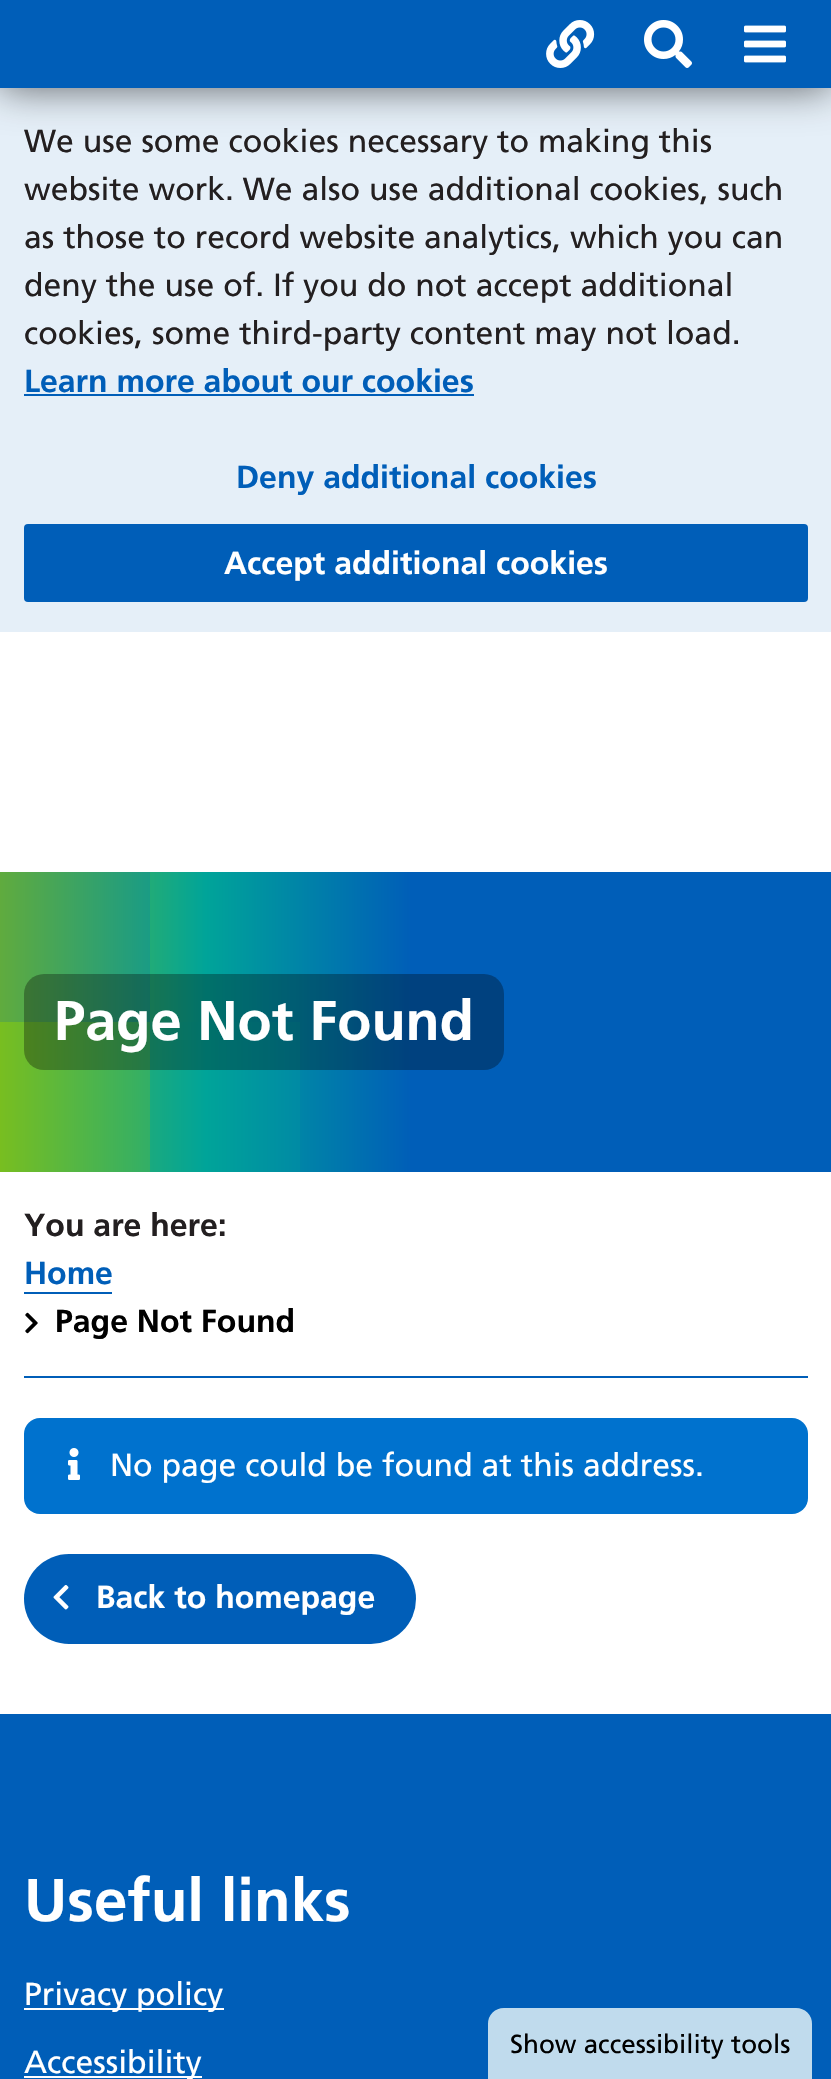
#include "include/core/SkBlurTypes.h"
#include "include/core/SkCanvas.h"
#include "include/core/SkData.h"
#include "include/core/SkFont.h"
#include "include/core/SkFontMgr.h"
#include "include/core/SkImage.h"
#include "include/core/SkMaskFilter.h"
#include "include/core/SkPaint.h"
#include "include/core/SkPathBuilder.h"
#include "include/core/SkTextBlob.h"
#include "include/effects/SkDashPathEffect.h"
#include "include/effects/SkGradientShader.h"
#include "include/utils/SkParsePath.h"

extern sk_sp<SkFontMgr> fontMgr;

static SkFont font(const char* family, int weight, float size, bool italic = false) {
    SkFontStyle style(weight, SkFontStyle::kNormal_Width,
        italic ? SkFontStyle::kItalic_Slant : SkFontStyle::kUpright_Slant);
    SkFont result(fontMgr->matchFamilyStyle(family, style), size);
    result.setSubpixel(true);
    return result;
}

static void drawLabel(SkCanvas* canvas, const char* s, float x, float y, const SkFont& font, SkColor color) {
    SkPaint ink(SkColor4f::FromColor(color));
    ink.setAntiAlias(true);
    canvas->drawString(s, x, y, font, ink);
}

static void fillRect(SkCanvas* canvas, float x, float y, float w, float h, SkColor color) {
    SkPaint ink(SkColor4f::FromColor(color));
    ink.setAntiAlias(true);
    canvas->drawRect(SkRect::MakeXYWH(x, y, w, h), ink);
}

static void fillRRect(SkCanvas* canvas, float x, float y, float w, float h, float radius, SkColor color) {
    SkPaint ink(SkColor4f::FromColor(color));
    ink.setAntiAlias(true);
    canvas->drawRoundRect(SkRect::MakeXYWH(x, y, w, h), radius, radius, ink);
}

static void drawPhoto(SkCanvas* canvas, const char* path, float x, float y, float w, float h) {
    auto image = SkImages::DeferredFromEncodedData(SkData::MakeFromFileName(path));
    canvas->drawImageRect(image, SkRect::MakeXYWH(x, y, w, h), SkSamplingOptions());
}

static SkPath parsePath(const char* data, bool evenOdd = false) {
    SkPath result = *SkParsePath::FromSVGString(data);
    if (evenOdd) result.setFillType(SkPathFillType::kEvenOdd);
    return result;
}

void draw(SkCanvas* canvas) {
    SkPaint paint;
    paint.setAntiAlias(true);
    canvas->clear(0xFFFFFFFF);
    fillRect(canvas, 0, 88, 831, 544, 0xFFE5EFF8);
    SkFont font1 = font("Frutiger", 400, 32);
    drawLabel(canvas, "We use some cookies necessary to making this", 24, 152, font1, 0xFF231F20);
    drawLabel(canvas, "website work. We also use additional cookies, such", 24, 200, font1, 0xFF231F20);
    drawLabel(canvas, "as those to record website analytics, which you can", 24, 248, font1, 0xFF231F20);
    drawLabel(canvas, "deny the use of. If you do not accept additional", 24, 296, font1, 0xFF231F20);
    drawLabel(canvas, "cookies, some third-party content may not load.", 24, 344, font1, 0xFF231F20);
    SkFont font2 = font("Frutiger", 700, 32);
    drawLabel(canvas, "Learn more about our cookies", 24, 392, font2, 0xFF005EB8);
    fillRect(canvas, 24, 394, 450, 2, 0xFF005EB8);
    drawLabel(canvas, "Deny additional cookies", 236, 488, font2, 0xFF005EB8);
    fillRRect(canvas, 24, 524, 784, 78, 4, 0xFF005EB8);
    drawLabel(canvas, "Accept additional cookies", 224, 574, font2, 0xFFFFFFFF);
    paint.setColor(0x99000000);
    paint.setMaskFilter(SkMaskFilter::MakeBlur(kNormal_SkBlurStyle, 20));
    canvas->drawRect(SkRect::MakeXYWH(0, 0, 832, 88), paint);
    paint.setMaskFilter(nullptr);
    fillRect(canvas, 0, 0, 831, 88, 0xFF005EB8);
    drawPhoto(canvas, "assets/img1.png", 546, 20, 49, 48);
    drawPhoto(canvas, "assets/img2.png", 644, 20, 48, 48);
    drawPhoto(canvas, "assets/img3.png", 744, 25, 42, 38);
    fillRect(canvas, 624, 872, 207, 300, 0xFF005EB8);
    {
        const SkColor colors[] = {0xFF78BE20, 0xFF00A499, 0xFF005EB8, 0xFF005EB8};
        const float stops[] = {0, 0.33f, 0.66f, 1};
        const SkPoint ends[] = {{0, 1022}, {624, 1022}};
        paint.setShader(SkGradientShader::MakeLinear(ends, colors, stops, 4, SkTileMode::kClamp));
        paint.setAlpha(255);
    }
    canvas->drawRect(SkRect::MakeXYWH(150, 872, 474, 300), paint);
    {
        const SkColor colors[] = {0xFF60B938, 0xFF00A499, 0xFF006CB2, 0xFF006CB2};
        const float stops[] = {0, 0.33f, 0.66f, 1};
        const SkPoint ends[] = {{0, 1022}, {624, 1022}};
        paint.setShader(SkGradientShader::MakeLinear(ends, colors, stops, 4, SkTileMode::kClamp));
        paint.setAlpha(255);
    }
    canvas->drawRect(SkRect::MakeXYWH(150, 1022, 150, 150), paint);
    {
        const SkColor colors[] = {0xFF78BE20, 0xFF18A981, 0xFF18719A, 0xFF18719A};
        const float stops[] = {0, 0.33f, 0.66f, 1};
        const SkPoint ends[] = {{0, 1022}, {624, 1022}};
        paint.setShader(SkGradientShader::MakeLinear(ends, colors, stops, 4, SkTileMode::kClamp));
        paint.setAlpha(255);
    }
    canvas->drawRect(SkRect::MakeXYWH(0, 1022, 150, 150), paint);
    {
        const SkColor colors[] = {0xFF60AB3E, 0xFF00969F, 0xFF005EB8, 0xFF005EB8};
        const float stops[] = {0, 0.33f, 0.66f, 1};
        const SkPoint ends[] = {{0, 1022}, {624, 1022}};
        paint.setShader(SkGradientShader::MakeLinear(ends, colors, stops, 4, SkTileMode::kClamp));
        paint.setAlpha(255);
    }
    canvas->drawRect(SkRect::MakeXYWH(0, 872, 150, 150), paint);
    fillRRect(canvas, 24, 974, 480, 96, 20, 0x4F000000);
    SkFont font3 = font("Frutiger", 700, 56);
    drawLabel(canvas, "Page Not Found", 54, 1040, font3, 0xFFFFFFFF);
    fillRect(canvas, 24, 1376, 784, 2, 0xFF005EB8);
    drawLabel(canvas, "You are here:", 24, 1236, font2, 0xFF231F20);
    drawLabel(canvas, "Home", 24, 1284, font2, 0xFF005EB8);
    fillRect(canvas, 24, 1292, 88, 2, 0xFF005EB8);
    drawPhoto(canvas, "assets/img4.png", 25, 1312, 13, 22);
    drawLabel(canvas, "Page Not Found", 55, 1332, font2, 0xFF000000);
    fillRRect(canvas, 24, 1418, 784, 96, 16, 0xFF0072CE);
    drawPhoto(canvas, "assets/img5.png", 68, 1448, 12, 32);
    drawLabel(canvas, "No page could be found at this address.", 110, 1476, font1, 0xFFFFFFFF);
    fillRRect(canvas, 24, 1554, 392, 90, 45, 0xFF005EB8);
    drawPhoto(canvas, "assets/img6.png", 53, 1585, 16, 25);
    drawLabel(canvas, "Back to homepage", 96, 1608, font2, 0xFFFFFFFF);
    fillRect(canvas, 0, 1714, 831, 365, 0xFF005EB8);
    SkFont font4 = font("Frutiger", 700, 60);
    drawLabel(canvas, "Useful links", 24, 1921, font4, 0xFFFFFFFF);
    fillRect(canvas, 24, 2008, 200, 2, 0xFFFFFFFF);
    drawLabel(canvas, "Privacy policy", 24, 2005, font1, 0xFFFFFFFF);
    fillRect(canvas, 24, 2076, 178, 2, 0xFFFFFFFF);
    drawLabel(canvas, "Accessibility", 24, 2073, font1, 0xFFFFFFFF);
    paint.setShader(nullptr);
    paint.setColor(0xFFC0DBED);
    canvas->drawPath(parsePath("M504 2009H796C804.5 2009 811 2015.5 811 2024V2079H489V2024C489 2015.5 495.5 2009 504 2009Z"), paint);
    paint.setStroke(true);
    paint.setStrokeWidth(2);
    canvas->drawPath(parsePath("M504 2009H796C804.5 2009 811 2015.5 811 2024V2079H489V2024C489 2015.5 495.5 2009 504 2009Z"), paint);
    SkFont font5 = font("Frutiger", 400, 26);
    drawLabel(canvas, "Show accessibility tools", 510, 2053, font5, 0xFF000000);
}
